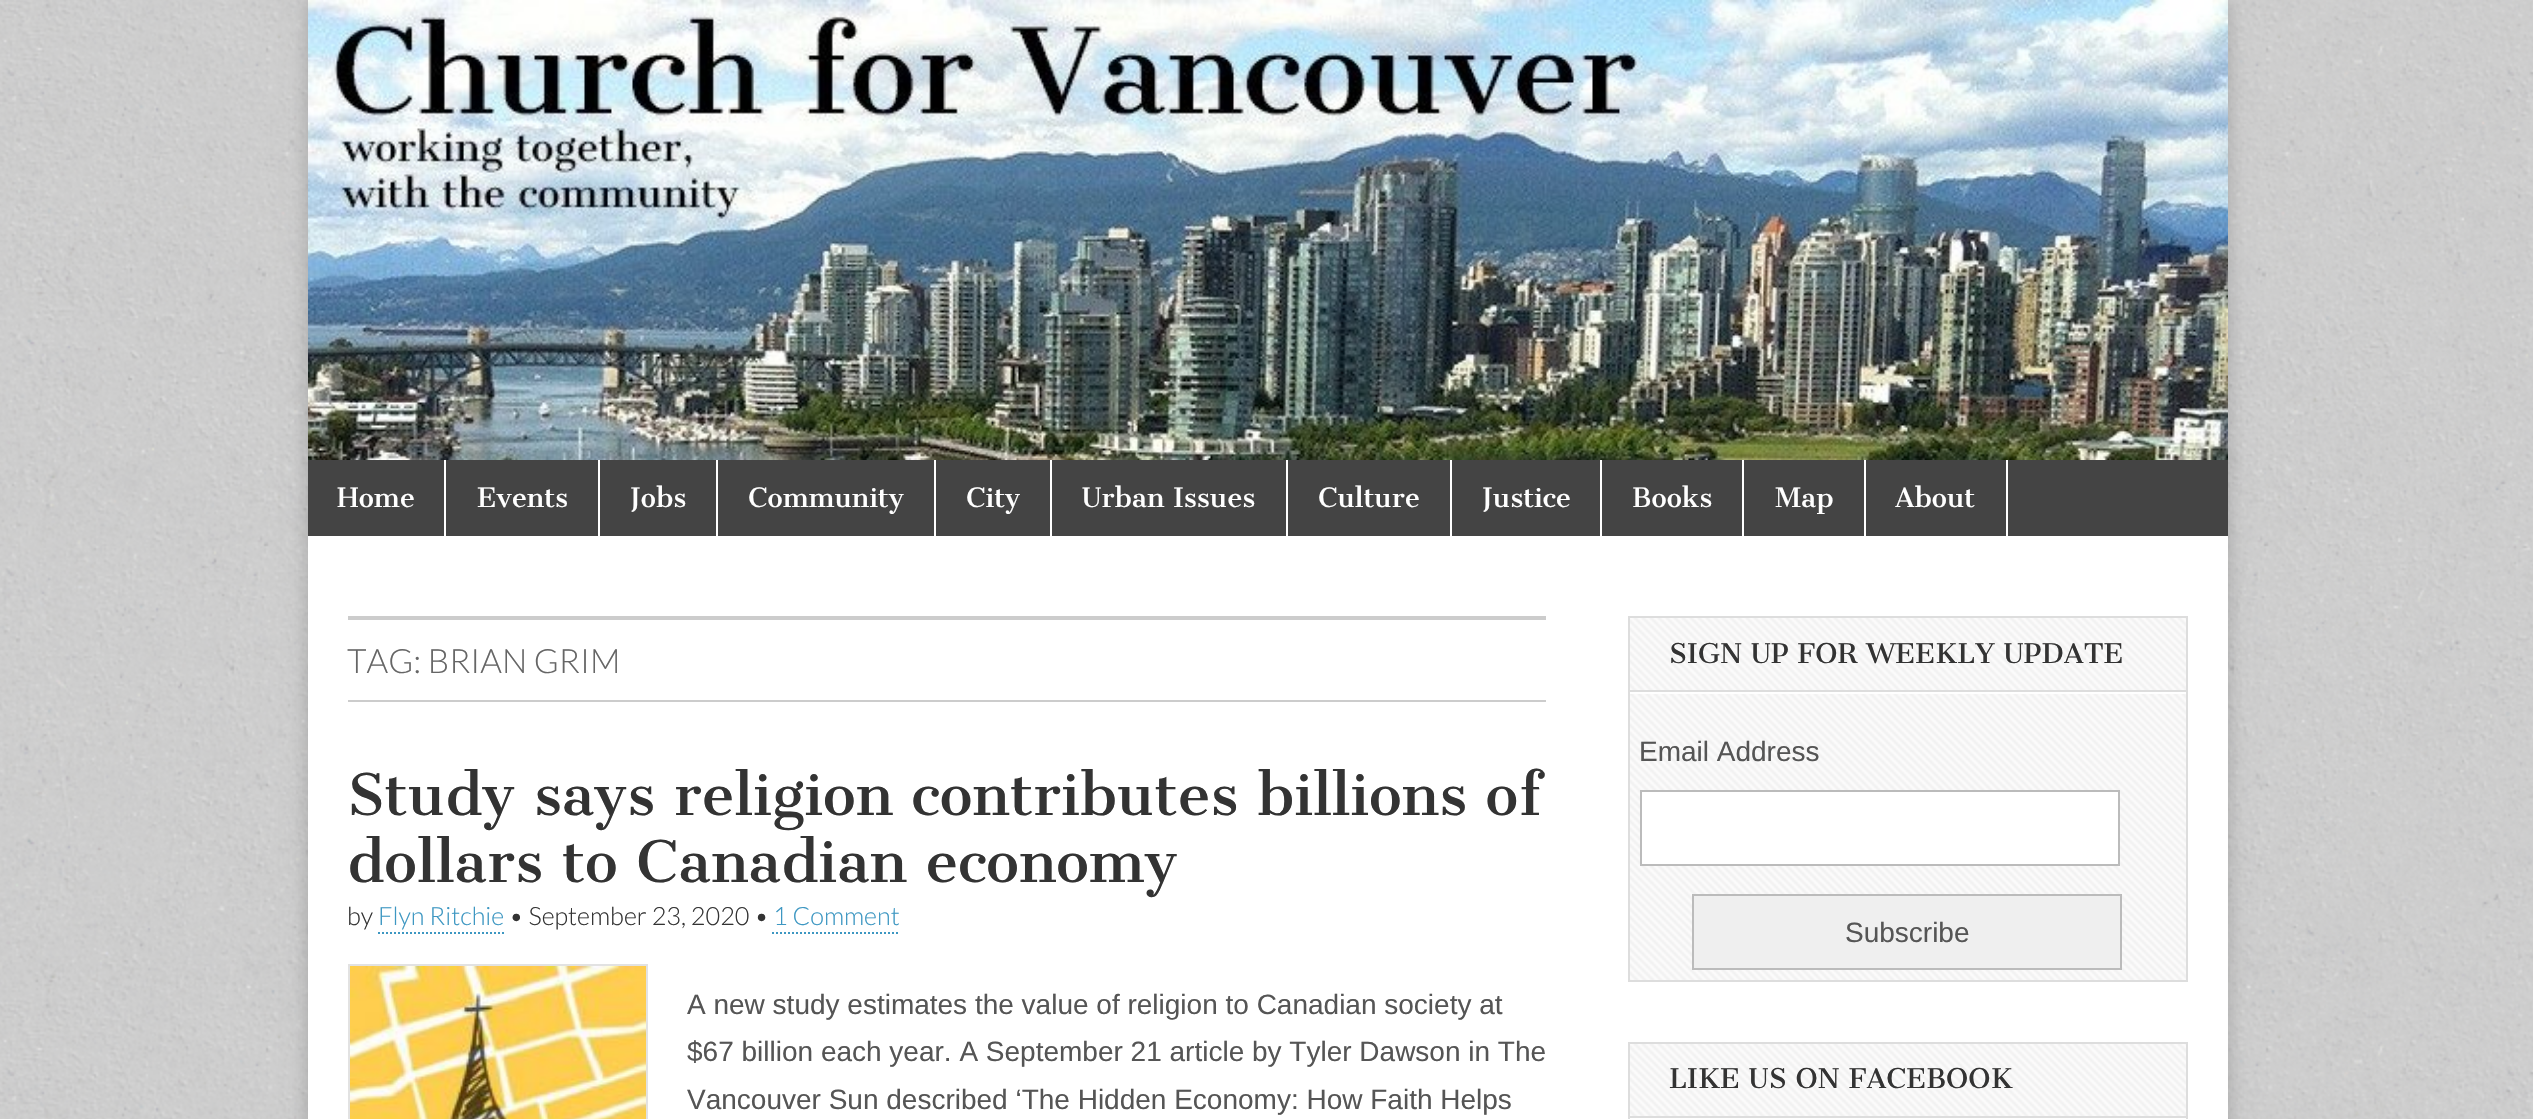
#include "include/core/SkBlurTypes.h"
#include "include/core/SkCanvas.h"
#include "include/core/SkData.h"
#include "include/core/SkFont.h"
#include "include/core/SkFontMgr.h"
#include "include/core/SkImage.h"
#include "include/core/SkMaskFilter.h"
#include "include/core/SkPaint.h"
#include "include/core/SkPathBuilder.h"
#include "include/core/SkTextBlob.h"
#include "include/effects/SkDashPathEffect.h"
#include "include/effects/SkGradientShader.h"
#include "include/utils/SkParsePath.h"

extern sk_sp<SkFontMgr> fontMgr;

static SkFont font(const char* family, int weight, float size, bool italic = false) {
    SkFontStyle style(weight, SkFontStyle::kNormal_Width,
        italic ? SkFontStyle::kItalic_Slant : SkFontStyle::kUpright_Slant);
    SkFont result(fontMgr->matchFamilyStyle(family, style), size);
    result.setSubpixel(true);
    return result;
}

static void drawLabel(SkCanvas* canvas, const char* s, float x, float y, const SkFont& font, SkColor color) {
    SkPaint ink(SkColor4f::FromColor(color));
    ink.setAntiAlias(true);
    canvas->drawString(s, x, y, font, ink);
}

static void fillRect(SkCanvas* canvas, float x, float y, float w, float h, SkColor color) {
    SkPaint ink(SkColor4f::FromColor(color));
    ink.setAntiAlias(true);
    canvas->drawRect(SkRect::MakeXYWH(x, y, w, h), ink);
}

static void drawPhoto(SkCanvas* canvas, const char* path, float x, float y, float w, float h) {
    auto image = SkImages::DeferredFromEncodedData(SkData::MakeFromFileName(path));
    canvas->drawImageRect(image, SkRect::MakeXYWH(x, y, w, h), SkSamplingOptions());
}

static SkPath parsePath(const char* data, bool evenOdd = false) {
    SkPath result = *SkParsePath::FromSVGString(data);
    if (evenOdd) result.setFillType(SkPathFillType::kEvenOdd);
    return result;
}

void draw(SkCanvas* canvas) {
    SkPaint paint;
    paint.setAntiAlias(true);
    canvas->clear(0xFFFFFFFF);
    drawPhoto(canvas, "assets/img1.png", 0, 0, 2533, 1119);
    paint.setColor(0x33000000);
    paint.setMaskFilter(SkMaskFilter::MakeBlur(kNormal_SkBlurStyle, 10));
    canvas->drawRect(SkRect::MakeXYWH(308, 0, 1920, 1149), paint);
    paint.setMaskFilter(nullptr);
    fillRect(canvas, 308, 536, 1920, 583, 0xFFFFFFFF);
    drawPhoto(canvas, "assets/img2.png", 308, 0, 1920, 460);
    fillRect(canvas, 308, 460, 1920, 76, 0xFF444444);
    fillRect(canvas, 444, 460, 2, 76, 0xFFFFFFFF);
    SkFont font1 = font("Cantata One", 400, 26);
    drawLabel(canvas, "Home", 337, 507, font1, 0xFFFFFFFF);
    fillRect(canvas, 598, 460, 2, 76, 0xFFFFFFFF);
    drawLabel(canvas, "Events", 477, 507, font1, 0xFFFFFFFF);
    fillRect(canvas, 716, 460, 2, 76, 0xFFFFFFFF);
    drawLabel(canvas, "Jobs", 630, 507, font1, 0xFFFFFFFF);
    fillRect(canvas, 934, 460, 2, 76, 0xFFFFFFFF);
    drawLabel(canvas, "Community", 748, 507, font1, 0xFFFFFFFF);
    fillRect(canvas, 1050, 460, 2, 76, 0xFFFFFFFF);
    drawLabel(canvas, "City", 966, 507, font1, 0xFFFFFFFF);
    fillRect(canvas, 1286, 460, 2, 76, 0xFFFFFFFF);
    drawLabel(canvas, "Urban Issues", 1082, 507, font1, 0xFFFFFFFF);
    fillRect(canvas, 1450, 460, 2, 76, 0xFFFFFFFF);
    drawLabel(canvas, "Culture", 1318, 507, font1, 0xFFFFFFFF);
    fillRect(canvas, 1600, 460, 2, 76, 0xFFFFFFFF);
    drawLabel(canvas, "Justice", 1482, 507, font1, 0xFFFFFFFF);
    fillRect(canvas, 1742, 460, 2, 76, 0xFFFFFFFF);
    drawLabel(canvas, "Books", 1632, 507, font1, 0xFFFFFFFF);
    fillRect(canvas, 1864, 460, 2, 76, 0xFFFFFFFF);
    drawLabel(canvas, "Map", 1775, 507, font1, 0xFFFFFFFF);
    fillRect(canvas, 2006, 460, 2, 76, 0xFFFFFFFF);
    drawLabel(canvas, "About", 1895, 507, font1, 0xFFFFFFFF);
    fillRect(canvas, 348, 616, 1198, 4, 0xFFCCCCCC);
    fillRect(canvas, 348, 700, 1198, 2, 0xFFCCCCCC);
    SkFont font2 = font("Lato", 300, 33.5f);
    drawLabel(canvas, "TAG: BRIAN GRIM", 347, 673, font2, 0xFF666666);
    SkFont font3 = font("Cantata One", 400, 56);
    drawLabel(canvas, "Study says religion contributes billions of", 347, 815, font3, 0xFF333333);
    drawLabel(canvas, "dollars to Canadian economy", 347, 882, font3, 0xFF333333);
    SkFont font4 = font("Lato", 300, 25.25f);
    drawLabel(canvas, "by", 347, 925, font4, 0xFF333333);
    drawLabel(canvas, "Flyn Ritchie", 378, 925, font4, 0xFF3D97C2);
    paint.setStroke(true);
    paint.setStrokeWidth(2);
    paint.setColor(0xFF3D97C2);
    paint.setPathEffect(SkDashPathEffect::Make({{2, 2}}, 0));
    canvas->drawPath(parsePath("M378 933H504"), paint);
    paint.setPathEffect(nullptr);
    drawLabel(canvas, "• September 23, 2020 •", 509, 925, font4, 0xFF333333);
    drawLabel(canvas, "1 Comment", 773, 925, font4, 0xFF3D97C2);
    paint.setPathEffect(SkDashPathEffect::Make({{2, 2}}, 0));
    canvas->drawPath(parsePath("M772 933H900"), paint);
    paint.setPathEffect(nullptr);
    paint.setColor(0xFFE2E2E2);
    canvas->drawRect(SkRect::MakeXYWH(349, 965, 298, 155), paint);
    drawPhoto(canvas, "assets/img3.png", 350, 966, 296, 153);
    SkFont font5 = font("Liberation Sans", 400, 28);
    drawLabel(canvas, "A new study estimates the value of religion to Canadian society at", 687, 1014, font5, 0xFF555555);
    drawLabel(canvas, "$67 billion each year. A September 21 article by Tyler Dawson in The", 687, 1061, font5, 0xFF555555);
    drawLabel(canvas, "Vancouver Sun described ‘The Hidden Economy: How Faith Helps", 687, 1109, font5, 0xFF555555);
    drawPhoto(canvas, "assets/img4.png", 1630, 618, 556, 362);
    paint.setColor(0xFFDDDDDD);
    canvas->drawRect(SkRect::MakeXYWH(1629, 617, 558, 364), paint);
    fillRect(canvas, 1630, 692, 556, 2, 0xFFFFFFFF);
    fillRect(canvas, 1630, 690, 556, 2, 0xFFDDDDDD);
    SkFont font6 = font("Cantata One", 400, 26.6f);
    drawLabel(canvas, "SIGN UP FOR WEEKLY UPDATE", 1669, 663, font6, 0xFF333333);
    drawLabel(canvas, "Email Address", 1639, 761, font5, 0xFF555555);
    paint.setStroke(false);
    paint.setColor(0xFFFFFFFF);
    canvas->drawRect(SkRect::MakeXYWH(1641, 791, 478, 74), paint);
    paint.setStroke(true);
    paint.setColor(0xFFBBBBBB);
    canvas->drawRect(SkRect::MakeXYWH(1641, 791, 478, 74), paint);
    paint.setStroke(false);
    paint.setColor(0xFFEFEFEF);
    canvas->drawRect(SkRect::MakeXYWH(1693, 895, 428, 74), paint);
    paint.setStroke(true);
    paint.setColor(0xFFBBBBBB);
    canvas->drawRect(SkRect::MakeXYWH(1693, 895, 428, 74), paint);
    drawLabel(canvas, "Subscribe", 1845, 942, font5, 0xFF555555);
    drawPhoto(canvas, "assets/img5.png", 1630, 1044, 556, 72);
    paint.setColor(0xFFDDDDDD);
    canvas->drawRect(SkRect::MakeXYWH(1629, 1043, 558, 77), paint);
    fillRect(canvas, 1630, 1116, 556, 2, 0xFFDDDDDD);
    drawLabel(canvas, "LIKE US ON FACEBOOK", 1669, 1088, font6, 0xFF333333);
}
